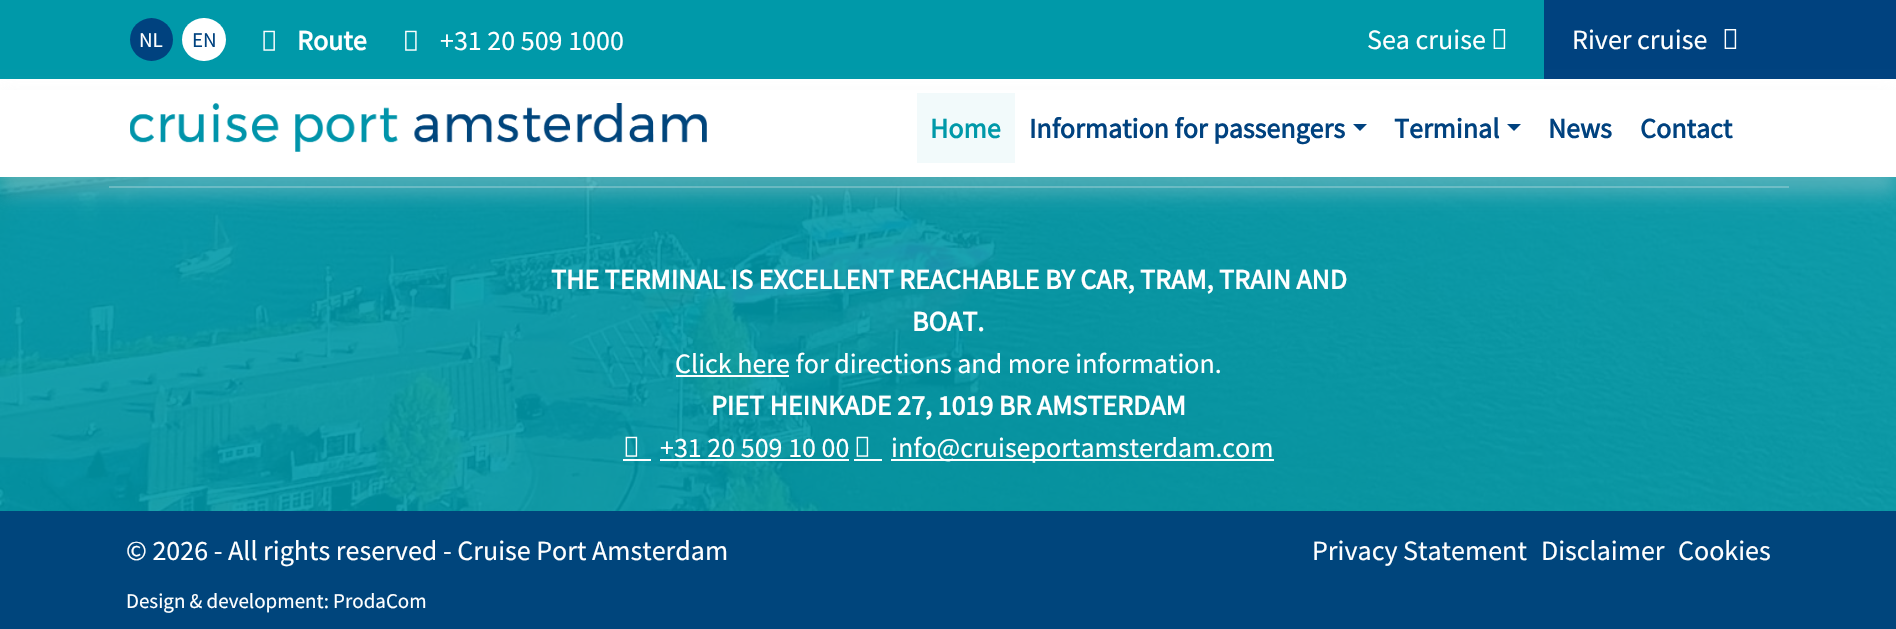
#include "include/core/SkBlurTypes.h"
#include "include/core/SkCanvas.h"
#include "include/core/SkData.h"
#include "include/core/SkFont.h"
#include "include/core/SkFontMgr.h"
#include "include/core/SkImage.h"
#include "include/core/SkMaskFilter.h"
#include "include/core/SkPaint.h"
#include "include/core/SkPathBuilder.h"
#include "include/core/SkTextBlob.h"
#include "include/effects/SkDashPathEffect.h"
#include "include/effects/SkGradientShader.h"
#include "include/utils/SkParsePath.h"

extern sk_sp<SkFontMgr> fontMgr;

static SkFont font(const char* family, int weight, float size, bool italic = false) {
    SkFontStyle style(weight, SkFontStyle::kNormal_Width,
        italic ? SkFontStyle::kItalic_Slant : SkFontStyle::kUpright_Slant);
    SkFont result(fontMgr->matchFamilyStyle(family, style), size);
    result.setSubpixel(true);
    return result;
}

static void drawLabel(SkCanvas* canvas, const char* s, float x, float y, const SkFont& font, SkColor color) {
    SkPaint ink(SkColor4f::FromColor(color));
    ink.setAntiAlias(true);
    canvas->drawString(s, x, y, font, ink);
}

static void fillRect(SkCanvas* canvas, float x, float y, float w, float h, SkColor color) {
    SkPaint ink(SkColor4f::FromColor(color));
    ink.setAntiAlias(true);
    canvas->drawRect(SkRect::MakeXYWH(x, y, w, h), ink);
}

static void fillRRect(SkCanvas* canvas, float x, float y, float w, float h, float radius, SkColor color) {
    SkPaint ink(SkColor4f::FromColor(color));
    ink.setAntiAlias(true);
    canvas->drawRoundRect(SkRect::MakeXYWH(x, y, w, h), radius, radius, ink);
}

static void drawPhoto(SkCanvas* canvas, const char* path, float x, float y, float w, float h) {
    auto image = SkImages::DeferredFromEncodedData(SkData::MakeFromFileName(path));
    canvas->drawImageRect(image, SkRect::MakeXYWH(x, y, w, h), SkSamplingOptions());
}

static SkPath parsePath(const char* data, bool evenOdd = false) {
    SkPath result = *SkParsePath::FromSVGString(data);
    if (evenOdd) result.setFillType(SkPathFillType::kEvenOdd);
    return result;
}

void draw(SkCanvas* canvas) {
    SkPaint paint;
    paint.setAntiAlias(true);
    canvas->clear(0xFFFFFFFF);
    fillRect(canvas, 0, 0, 1544, 79, 0xFF0099A9);
    paint.setColor(0xFF00427F);
    canvas->drawCircle(151.5f, 39.5f, 21.5f, paint);
    SkFont font1 = font("Source Sans Pro", 400, 21);
    drawLabel(canvas, "NL", 139, 47, font1, 0xFFFFFFFF);
    fillRRect(canvas, 182, 18, 44, 43, 21.5f, 0xFFFFFFFF);
    drawLabel(canvas, "EN", 192, 47, font1, 0xFF00427F);
    drawPhoto(canvas, "assets/img1.png", 263, 30, 12, 21);
    SkFont font2 = font("Source Sans Pro", 700, 28);
    drawLabel(canvas, "Route", 297, 50, font2, 0xFFFFFFFF);
    drawPhoto(canvas, "assets/img2.png", 405, 30, 12, 21);
    SkFont font3 = font("Source Sans Pro", 400, 28);
    drawLabel(canvas, "+31 20 509 1000", 440, 50, font3, 0xFFFFFFFF);
    drawLabel(canvas, "Sea cruise", 1367, 49, font3, 0xFFFFFFFF);
    drawPhoto(canvas, "assets/img3.png", 1493, 29, 13, 20);
    fillRect(canvas, 1544, 0, 352, 79, 0xFF00427F);
    drawLabel(canvas, "River cruise", 1572, 49, font3, 0xFFFFFFFF);
    drawPhoto(canvas, "assets/img4.png", 1724, 29, 13, 20);
    drawPhoto(canvas, "assets/img6.png", 0, 177, 1896, 334);
    fillRect(canvas, 109, 186, 1680, 2, 0x40FFFFFF);
    paint.setColor(0x4DDEDEDE);
    paint.setMaskFilter(SkMaskFilter::MakeBlur(kNormal_SkBlurStyle, 9));
    canvas->drawRect(SkRect::MakeXYWH(0, 96, 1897, 98), paint);
    paint.setMaskFilter(nullptr);
    fillRect(canvas, 0, 90, 1896, 87, 0xFFFFFFFF);
    drawPhoto(canvas, "assets/img5.png", 130, 103, 577, 49);
    fillRect(canvas, 917, 93, 98, 70, 0xFFF2FAFB);
    drawLabel(canvas, "Home", 930, 138, font2, 0xFF0099A9);
    drawLabel(canvas, "Information for passengers", 1029, 138, font2, 0xFF00427F);
    paint.setColor(0xFF00427F);
    canvas->drawPath(parsePath("M1353 124H1367L1360 131Z"), paint);
    drawLabel(canvas, "Terminal", 1394, 138, font2, 0xFF00427F);
    canvas->drawPath(parsePath("M1507 124H1521L1514 131Z"), paint);
    drawLabel(canvas, "News", 1548, 138, font2, 0xFF00427F);
    drawLabel(canvas, "Contact", 1640, 138, font2, 0xFF00427F);
    drawLabel(canvas, "THE TERMINAL IS EXCELLENT REACHABLE BY CAR, TRAM, TRAIN AND", 551, 289, font2, 0xFFFFFFFF);
    drawLabel(canvas, "BOAT.", 912, 331, font2, 0xFFFFFFFF);
    drawLabel(canvas, "Click here for directions and more information.", 675, 373, font3, 0xFFFFFFFF);
    fillRect(canvas, 676, 375, 113, 2, 0xFFFFFFFF);
    drawLabel(canvas, "PIET HEINKADE 27, 1019 BR AMSTERDAM", 711, 415, font2, 0xFFFFFFFF);
    drawPhoto(canvas, "assets/img7.png", 625, 436, 13, 21);
    drawLabel(canvas, "+31 20 509 10 00", 660, 457, font3, 0xFFFFFFFF);
    fillRect(canvas, 623, 459, 28, 2, 0xFFFFFFFF);
    fillRect(canvas, 660, 459, 189, 2, 0xFFFFFFFF);
    drawPhoto(canvas, "assets/img8.png", 856, 436, 13, 21);
    fillRect(canvas, 891, 459, 383, 2, 0xFFFFFFFF);
    drawLabel(canvas, "info@cruiseportamsterdam.com", 891, 457, font3, 0xFFFFFFFF);
    fillRect(canvas, 854, 459, 28, 2, 0xFFFFFFFF);
    fillRect(canvas, 0, 511, 1896, 118, 0xFF00457C);
    drawLabel(canvas, "© 2026 - All rights reserved - Cruise Port Amsterdam", 126, 560, font3, 0xFFFFFFFF);
    drawLabel(canvas, "Design & development: ProdaCom", 126, 608, font1, 0xFFFFFFFF);
    drawLabel(canvas, "Privacy Statement", 1312, 560, font3, 0xFFFFFFFF);
    drawLabel(canvas, "Disclaimer", 1541, 560, font3, 0xFFFFFFFF);
    drawLabel(canvas, "Cookies", 1678, 560, font3, 0xFFFFFFFF);
}
